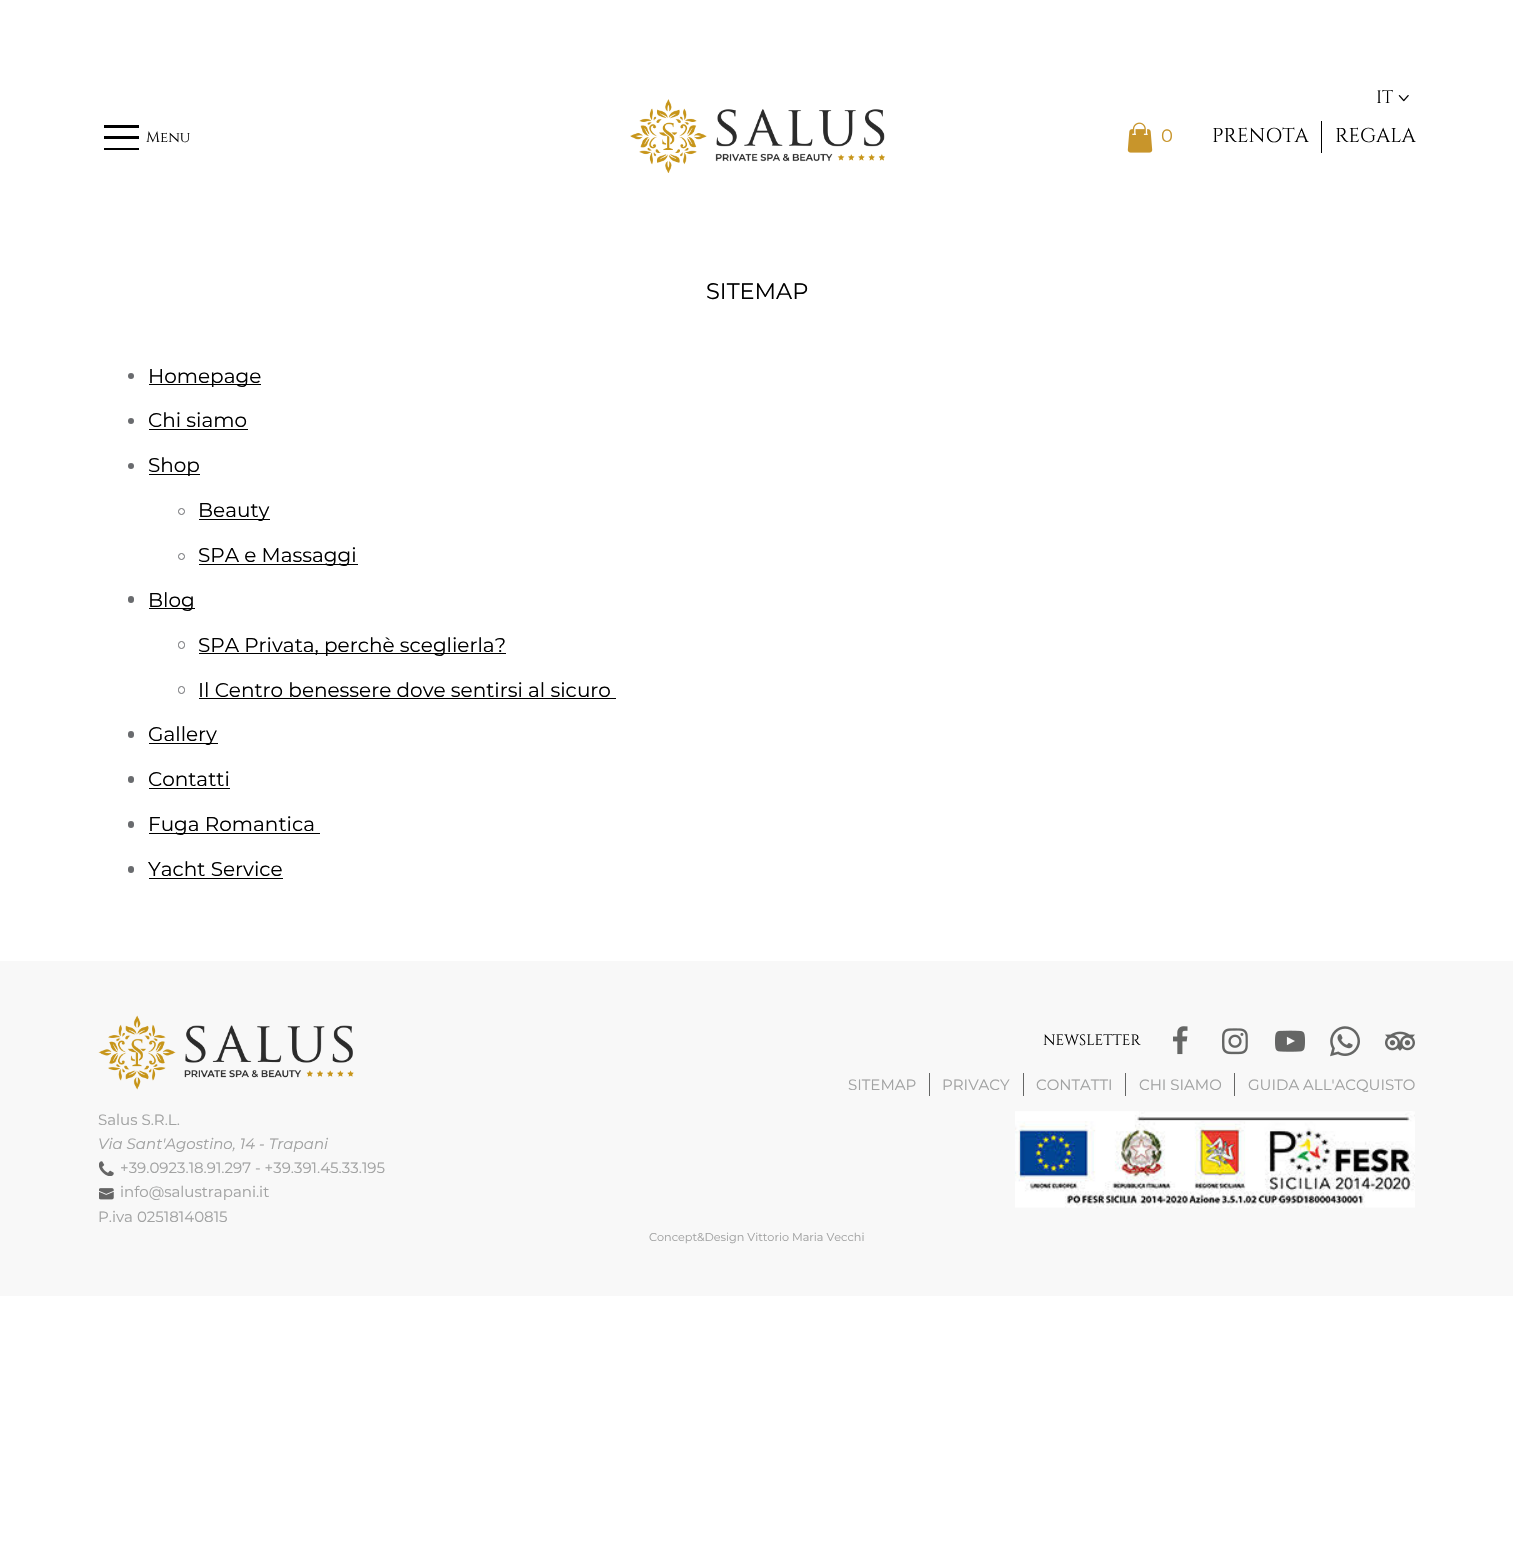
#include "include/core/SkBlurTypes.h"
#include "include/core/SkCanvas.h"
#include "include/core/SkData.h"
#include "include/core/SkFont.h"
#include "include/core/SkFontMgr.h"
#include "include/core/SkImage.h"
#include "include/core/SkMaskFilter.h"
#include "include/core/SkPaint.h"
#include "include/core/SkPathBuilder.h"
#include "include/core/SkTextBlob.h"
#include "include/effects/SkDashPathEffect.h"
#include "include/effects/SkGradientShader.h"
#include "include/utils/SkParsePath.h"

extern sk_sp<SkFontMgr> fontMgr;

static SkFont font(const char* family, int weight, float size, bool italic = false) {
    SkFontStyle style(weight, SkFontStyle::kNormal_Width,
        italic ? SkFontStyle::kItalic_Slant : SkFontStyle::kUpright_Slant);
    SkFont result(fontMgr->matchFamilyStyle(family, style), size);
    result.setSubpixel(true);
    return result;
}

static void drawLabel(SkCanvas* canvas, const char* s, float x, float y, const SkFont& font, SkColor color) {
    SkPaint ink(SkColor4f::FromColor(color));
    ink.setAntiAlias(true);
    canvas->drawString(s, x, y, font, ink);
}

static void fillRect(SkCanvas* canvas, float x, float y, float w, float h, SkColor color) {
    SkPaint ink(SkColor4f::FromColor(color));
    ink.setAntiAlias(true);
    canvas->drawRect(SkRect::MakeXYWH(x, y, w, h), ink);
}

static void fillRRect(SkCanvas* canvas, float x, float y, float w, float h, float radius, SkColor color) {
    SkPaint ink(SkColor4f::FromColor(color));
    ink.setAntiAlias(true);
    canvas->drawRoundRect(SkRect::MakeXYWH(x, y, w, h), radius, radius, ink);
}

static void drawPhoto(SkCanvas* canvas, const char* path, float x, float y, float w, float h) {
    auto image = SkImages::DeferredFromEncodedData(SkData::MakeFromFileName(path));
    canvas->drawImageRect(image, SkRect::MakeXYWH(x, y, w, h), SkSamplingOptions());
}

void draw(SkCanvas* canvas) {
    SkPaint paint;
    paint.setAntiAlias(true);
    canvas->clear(0xFFFFFFFF);
    SkFont font1 = font("Cinzel", 400, 18);
    drawLabel(canvas, "IT", 1376, 103, font1, 0xFF000000);
    drawPhoto(canvas, "assets/img1.png", 1398, 95, 11, 7);
    fillRect(canvas, 104, 125, 35, 3, 0xFF000000);
    fillRect(canvas, 104, 136, 35, 3, 0xFF000000);
    SkFont font2 = font("Cinzel", 400, 15);
    drawLabel(canvas, "Menu", 146, 142, font2, 0xFF000000);
    fillRect(canvas, 104, 148, 35, 2, 0xFF000000);
    drawPhoto(canvas, "assets/img2.png", 630, 99, 255, 74);
    drawPhoto(canvas, "assets/img3.png", 1127, 122, 26, 31);
    SkFont font3 = font("Montserrat", 400, 18);
    drawLabel(canvas, "0", 1161, 142, font3, 0xFFC8952B);
    fillRect(canvas, 1321, 121, 1, 32, 0xFF000000);
    SkFont font4 = font("Cinzel", 400, 20);
    drawLabel(canvas, "PRENOTA", 1212, 142, font4, 0xFF000000);
    drawLabel(canvas, "REGALA", 1335, 142, font4, 0xFF000000);
    SkFont font5 = font("Montserrat", 400, 22.5f);
    drawLabel(canvas, "SITEMAP", 706, 299, font5, 0xFF000000);
    paint.setColor(0xFF696B6E);
    canvas->drawCircle(131, 376, 3, paint);
    fillRect(canvas, 149, 384, 112, 1, 0xFF000000);
    SkFont font6 = font("Montserrat", 400, 20);
    drawLabel(canvas, "Homepage", 148, 383, font6, 0xFF000000);
    canvas->drawCircle(131, 421, 3, paint);
    drawLabel(canvas, "Chi siamo", 148, 427, font6, 0xFF000000);
    fillRect(canvas, 149, 429, 99, 1, 0xFF000000);
    canvas->drawCircle(131, 466, 3, paint);
    fillRect(canvas, 149, 474, 51, 1, 0xFF000000);
    drawLabel(canvas, "Shop", 148, 472, font6, 0xFF000000);
    paint.setStroke(true);
    paint.setStrokeWidth(1);
    canvas->drawCircle(181.5f, 511.5f, 3, paint);
    fillRect(canvas, 199, 519, 71, 1, 0xFF000000);
    drawLabel(canvas, "Beauty", 198, 517, font6, 0xFF000000);
    canvas->drawCircle(181.5f, 556.5f, 3, paint);
    fillRect(canvas, 199, 564, 159, 1, 0xFF000000);
    drawLabel(canvas, "SPA e Massaggi", 198, 562, font6, 0xFF000000);
    fillRRect(canvas, 128, 596, 6, 7, 3, 0xFF696B6E);
    fillRect(canvas, 149, 608, 46, 1, 0xFF000000);
    drawLabel(canvas, "Blog", 148, 607, font6, 0xFF000000);
    canvas->drawRoundRect(SkRect::MakeXYWH(178.5f, 641.5f, 6, 7), 3, 3, paint);
    fillRect(canvas, 199, 653, 307, 1, 0xFF000000);
    drawLabel(canvas, "SPA Privata, perchè sceglierla?", 198, 652, font6, 0xFF000000);
    canvas->drawRoundRect(SkRect::MakeXYWH(178.5f, 686.5f, 6, 7), 3, 3, paint);
    drawLabel(canvas, "Il Centro benessere dove sentirsi al sicuro", 198, 697, font6, 0xFF000000);
    fillRect(canvas, 199, 698, 417, 1, 0xFF000000);
    fillRRect(canvas, 128, 731, 6, 7, 3, 0xFF696B6E);
    fillRect(canvas, 149, 743, 69, 1, 0xFF000000);
    drawLabel(canvas, "Gallery", 148, 741, font6, 0xFF000000);
    fillRRect(canvas, 128, 776, 6, 7, 3, 0xFF696B6E);
    drawLabel(canvas, "Contatti", 148, 786, font6, 0xFF000000);
    fillRect(canvas, 149, 788, 81, 1, 0xFF000000);
    fillRRect(canvas, 128, 821, 6, 7, 3, 0xFF696B6E);
    fillRect(canvas, 149, 833, 171, 1, 0xFF000000);
    drawLabel(canvas, "Fuga Romantica", 148, 831, font6, 0xFF000000);
    fillRRect(canvas, 128, 866, 6, 7, 3, 0xFF696B6E);
    drawLabel(canvas, "Yacht Service", 148, 876, font6, 0xFF000000);
    fillRect(canvas, 149, 878, 134, 1, 0xFF000000);
    fillRect(canvas, 0, 961, 1513, 335, 0xFFF8F8F8);
    drawLabel(canvas, "NEWSLETTER", 1043, 1045, font2, 0xFF000000);
    drawPhoto(canvas, "assets/img4.png", 1173, 1026, 15, 29);
    drawPhoto(canvas, "assets/img5.png", 1222, 1028, 26, 27);
    drawPhoto(canvas, "assets/img6.png", 1275, 1030, 30, 22);
    drawPhoto(canvas, "assets/img7.png", 1330, 1026, 30, 31);
    drawPhoto(canvas, "assets/img8.png", 1385, 1031, 30, 20);
    fillRect(canvas, 929, 1073, 1, 23, 0xFF656665);
    SkFont font7 = font("Montserrat", 400, 15);
    drawLabel(canvas, "SITEMAP", 848, 1090, font7, 0xFFA1A2A2);
    fillRect(canvas, 1023, 1073, 1, 23, 0xFF656665);
    drawLabel(canvas, "PRIVACY", 942, 1090, font7, 0xFFA1A2A2);
    fillRect(canvas, 1125, 1073, 1, 23, 0xFF656665);
    drawLabel(canvas, "CONTATTI", 1036, 1090, font7, 0xFFA1A2A2);
    fillRect(canvas, 1234, 1073, 1, 23, 0xFF656665);
    drawLabel(canvas, "CHI SIAMO", 1139, 1090, font7, 0xFFA1A2A2);
    drawLabel(canvas, "GUIDA ALL'ACQUISTO", 1248, 1090, font7, 0xFFA1A2A2);
    drawPhoto(canvas, "assets/img9.png", 1015, 1111, 400, 97);
    drawPhoto(canvas, "assets/img10.png", 98, 1015, 256, 75);
    drawLabel(canvas, "Salus S.R.L.", 98, 1125, font7, 0xFFA1A2A2);
    SkFont font8 = font("Montserrat", 400, 15, true);
    drawLabel(canvas, "Via Sant'Agostino, 14 - Trapani", 98, 1149, font8, 0xFFA1A2A2);
    drawPhoto(canvas, "assets/img11.png", 99, 1161, 15, 15);
    drawLabel(canvas, "+39.0923.18.91.297 - +39.391.45.33.195", 120, 1173, font7, 0xFFA1A2A2);
    drawPhoto(canvas, "assets/img12.png", 99, 1188, 15, 12);
    drawLabel(canvas, "info@salustrapani.it", 120, 1197, font7, 0xFFA1A2A2);
    drawLabel(canvas, "P.iva 02518140815", 98, 1222, font7, 0xFFA1A2A2);
    SkFont font9 = font("Montserrat", 400, 11.25f);
    drawLabel(canvas, "Concept&Design Vittorio Maria Vecchi", 649, 1241, font9, 0xFFA1A2A2);
}
